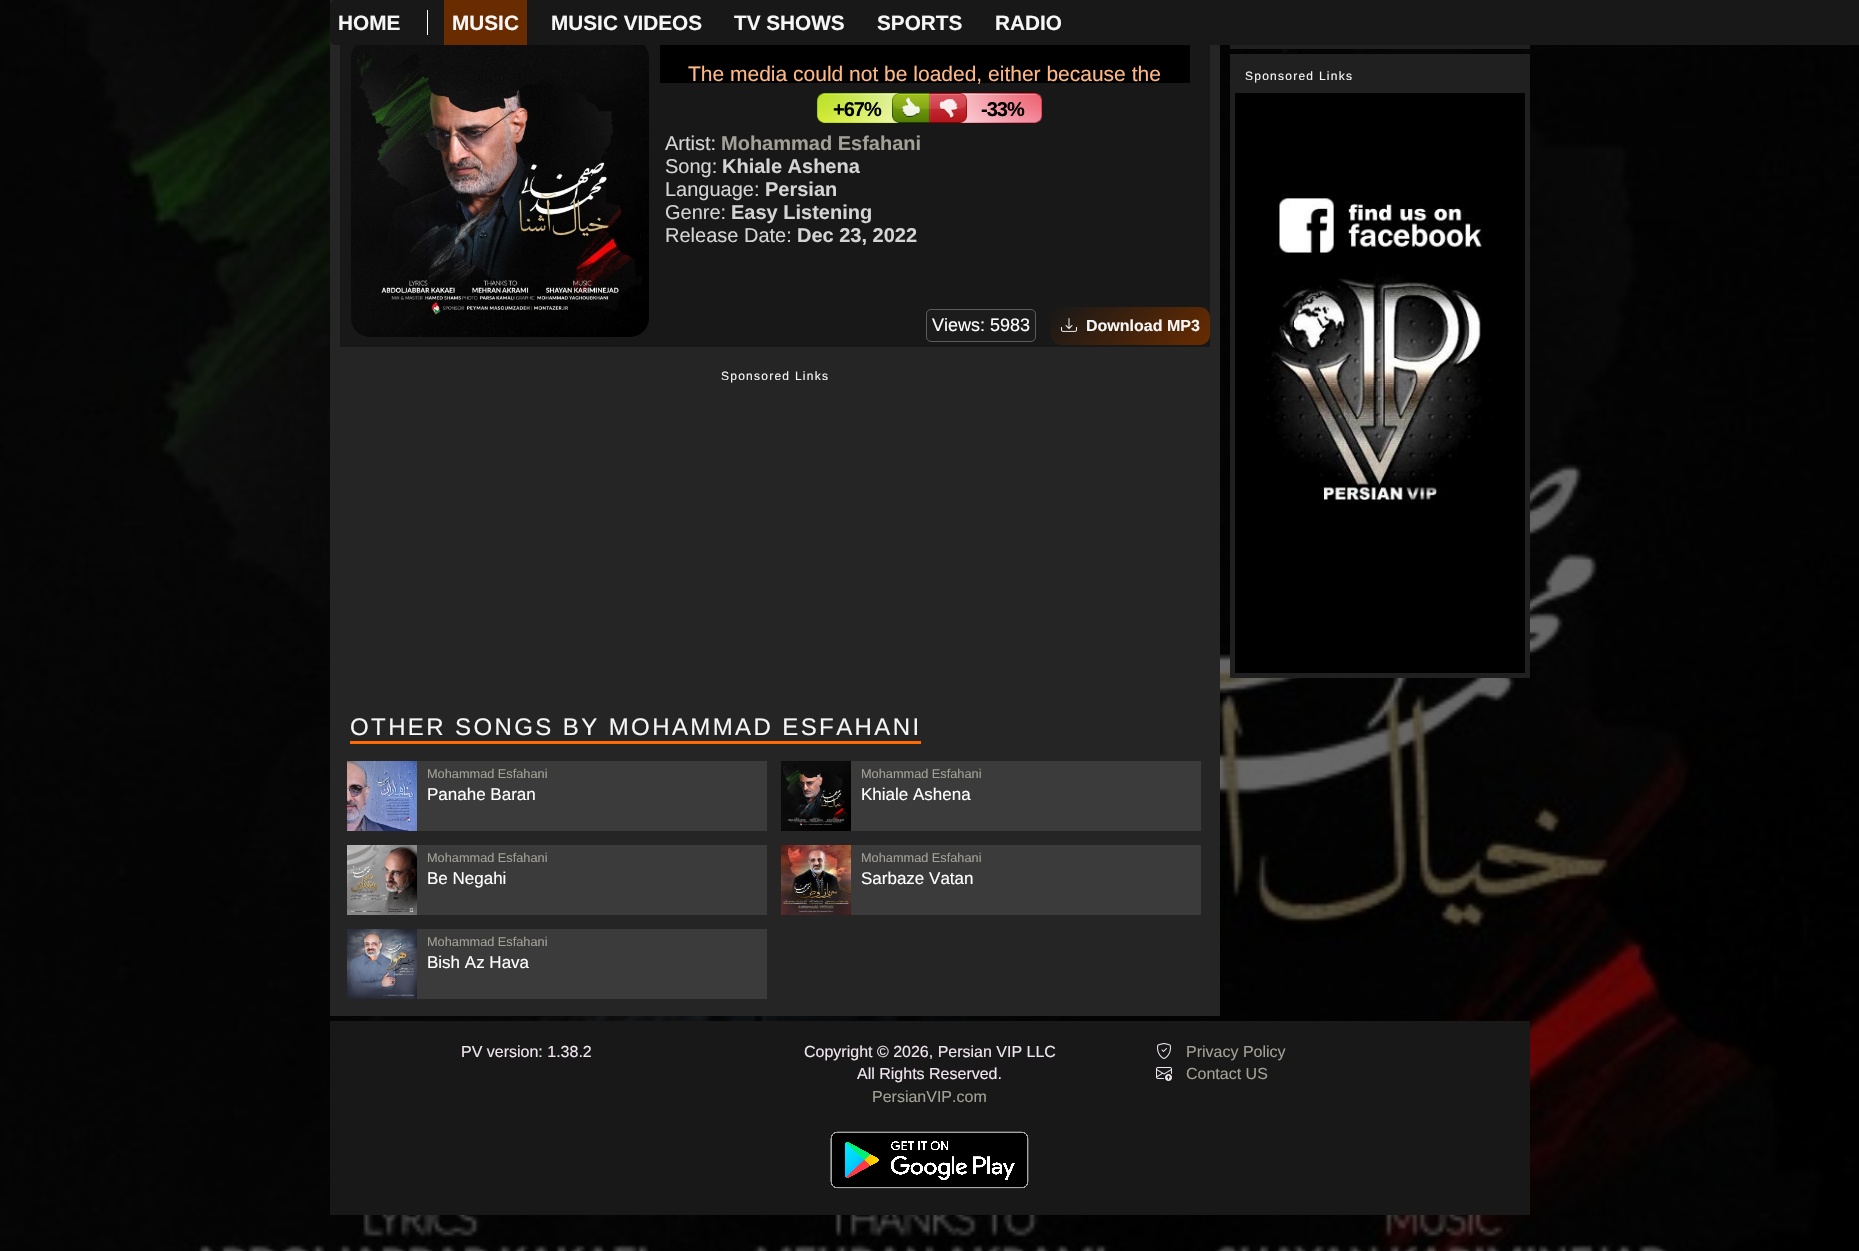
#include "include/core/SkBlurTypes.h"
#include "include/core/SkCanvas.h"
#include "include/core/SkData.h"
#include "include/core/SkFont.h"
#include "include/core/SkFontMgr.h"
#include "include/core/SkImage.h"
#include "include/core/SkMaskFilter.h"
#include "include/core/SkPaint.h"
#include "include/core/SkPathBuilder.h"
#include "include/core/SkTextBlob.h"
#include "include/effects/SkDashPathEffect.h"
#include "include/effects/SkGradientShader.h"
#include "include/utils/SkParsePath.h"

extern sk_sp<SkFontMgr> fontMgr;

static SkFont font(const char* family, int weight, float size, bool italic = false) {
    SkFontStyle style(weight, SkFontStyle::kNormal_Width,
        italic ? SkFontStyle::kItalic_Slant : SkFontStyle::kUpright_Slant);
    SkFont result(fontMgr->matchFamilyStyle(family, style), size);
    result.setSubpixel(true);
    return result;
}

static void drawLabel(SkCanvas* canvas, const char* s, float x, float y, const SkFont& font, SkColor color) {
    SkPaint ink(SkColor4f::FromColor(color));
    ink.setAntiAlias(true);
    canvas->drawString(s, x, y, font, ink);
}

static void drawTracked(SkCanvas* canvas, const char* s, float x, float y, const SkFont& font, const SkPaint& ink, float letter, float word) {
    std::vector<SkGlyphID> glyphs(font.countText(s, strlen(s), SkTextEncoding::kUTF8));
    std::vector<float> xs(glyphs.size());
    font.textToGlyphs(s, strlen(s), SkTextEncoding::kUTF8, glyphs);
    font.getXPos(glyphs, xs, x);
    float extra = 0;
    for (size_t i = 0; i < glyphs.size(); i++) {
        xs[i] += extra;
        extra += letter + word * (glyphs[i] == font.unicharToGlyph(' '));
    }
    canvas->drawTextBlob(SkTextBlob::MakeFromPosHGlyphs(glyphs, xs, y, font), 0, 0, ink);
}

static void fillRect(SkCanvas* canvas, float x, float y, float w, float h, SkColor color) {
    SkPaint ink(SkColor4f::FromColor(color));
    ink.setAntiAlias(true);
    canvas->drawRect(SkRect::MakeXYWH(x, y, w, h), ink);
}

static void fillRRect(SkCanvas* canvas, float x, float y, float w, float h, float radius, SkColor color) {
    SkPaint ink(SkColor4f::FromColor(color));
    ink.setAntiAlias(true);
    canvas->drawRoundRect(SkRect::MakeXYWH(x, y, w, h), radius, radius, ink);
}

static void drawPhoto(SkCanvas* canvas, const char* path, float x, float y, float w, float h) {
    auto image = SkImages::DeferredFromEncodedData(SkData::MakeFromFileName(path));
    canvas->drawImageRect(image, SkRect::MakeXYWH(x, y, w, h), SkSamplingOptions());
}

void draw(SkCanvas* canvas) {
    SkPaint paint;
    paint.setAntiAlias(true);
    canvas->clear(0xFFFFFFFF);
    drawPhoto(canvas, "assets/img1.png", 0, 0, 1859, 1251);
    fillRect(canvas, 330, 0, 890, 1016, 0xFF252525);
    fillRRect(canvas, 330, 0, 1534, 45, 5, 0xFF181818);
    SkFont font1 = font("Liberation Sans", 700, 20.75f);
    drawLabel(canvas, "HOME", 338, 30, font1, 0xFFF6F6F6);
    fillRect(canvas, 427, 10, 1, 25, 0xFFFFFFFF);
    fillRect(canvas, 444, 0, 83, 45, 0xFF692C00);
    drawLabel(canvas, "MUSIC", 452, 30, font1, 0xFFF6F6F6);
    drawLabel(canvas, "MUSIC VIDEOS", 551, 30, font1, 0xFFF6F6F6);
    drawLabel(canvas, "TV SHOWS", 734, 30, font1, 0xFFF6F6F6);
    drawLabel(canvas, "SPORTS", 877, 30, font1, 0xFFF6F6F6);
    drawLabel(canvas, "RADIO", 995, 30, font1, 0xFFF6F6F6);
    fillRect(canvas, 340, 45, 870, 302, 0xFF181818);
    drawPhoto(canvas, "assets/img2.png", 351, 45, 298, 292);
    fillRect(canvas, 660, 45, 530, 38, 0xFF000000);
    SkFont font2 = font("Liberation Sans", 400, 21);
    drawLabel(canvas, "The media could not be loaded, either because the", 688, 81, font2, 0xFFFFB884);
    drawPhoto(canvas, "assets/img3.png", 817, 93, 225, 30);
    SkFont font3 = font("Liberation Sans", 700, 20);
    paint.setColor(0xFF000000);
    drawTracked(canvas, "+67%", 833, 116, font3, paint, -1, 0);
    drawTracked(canvas, "-33%", 981, 116, font3, paint, -1, 0);
    SkFont font4 = font("Liberation Sans", 400, 20);
    drawLabel(canvas, "Artist:", 665, 150, font4, 0xFFD4D4D4);
    drawLabel(canvas, "Mohammad Esfahani", 721, 150, font3, 0xFFA2A197);
    drawLabel(canvas, "Song:", 665, 173, font4, 0xFFD4D4D4);
    drawLabel(canvas, "Khiale Ashena", 722, 173, font3, 0xFFD4D4D4);
    drawLabel(canvas, "Language:", 665, 196, font4, 0xFFD4D4D4);
    drawLabel(canvas, "Persian", 765, 196, font3, 0xFFD4D4D4);
    drawLabel(canvas, "Genre:", 665, 219, font4, 0xFFD4D4D4);
    drawLabel(canvas, "Easy Listening", 731, 219, font3, 0xFFD4D4D4);
    drawLabel(canvas, "Release Date:", 665, 242, font4, 0xFFD4D4D4);
    drawLabel(canvas, "Dec 23, 2022", 797, 242, font3, 0xFFD4D4D4);
    paint.setColor(0xFF1C1C1C);
    canvas->drawRoundRect(SkRect::MakeXYWH(926.5f, 309.5f, 109, 32), 4.5f, 4.5f, paint);
    paint.setStroke(true);
    paint.setStrokeWidth(1);
    paint.setColor(0xFF5C5C5C);
    canvas->drawRoundRect(SkRect::MakeXYWH(926.5f, 309.5f, 109, 32), 4.5f, 4.5f, paint);
    SkFont font5 = font("Liberation Sans", 400, 18);
    drawLabel(canvas, "Views: 5983", 932, 331, font5, 0xFFFFFFFF);
    paint.setStroke(false);
    {
        const SkColor colors[] = {0xFF181818, 0xFF692C00};
        const float stops[] = {0, 1};
        const SkPoint ends[] = {{1081, 277}, {1180, 375}};
        paint.setShader(SkGradientShader::MakeLinear(ends, colors, stops, 2, SkTileMode::kClamp));
        paint.setAlpha(255);
    }
    canvas->drawRoundRect(SkRect::MakeXYWH(1051, 307, 159, 38), 10, 10, paint);
    drawPhoto(canvas, "assets/img4.png", 1061, 318, 16, 14);
    SkFont font6 = font("Liberation Sans", 700, 16);
    drawLabel(canvas, "Download MP3", 1086, 331, font6, 0xFFF6F6F6);
    SkFont font7 = font("Liberation Sans", 400, 12);
    paint.setShader(nullptr);
    paint.setColor(0xFFF6F6F6);
    drawTracked(canvas, "Sponsored Links", 721, 380, font7, paint, 1.25f, 0);
    fillRect(canvas, 350, 741, 571, 3, 0xFFFF6B00);
    SkFont font8 = font("Liberation Sans", 400, 24);
    drawTracked(canvas, "OTHER SONGS BY MOHAMMAD ESFAHANI", 350, 735, font8, paint, 2.4f, 0);
    fillRect(canvas, 417, 761, 350, 70, 0xFF3B3B3B);
    drawPhoto(canvas, "assets/img5.png", 347, 761, 70, 70);
    SkFont font9 = font("Liberation Sans", 400, 12.75f);
    drawLabel(canvas, "Mohammad Esfahani", 427, 778, font9, 0xFFA2A197);
    SkFont font10 = font("Liberation Sans", 400, 17);
    drawLabel(canvas, "Panahe Baran", 427, 800, font10, 0xFFFFFFFF);
    fillRect(canvas, 851, 761, 350, 70, 0xFF3B3B3B);
    drawPhoto(canvas, "assets/img6.png", 781, 761, 70, 70);
    drawLabel(canvas, "Mohammad Esfahani", 861, 778, font9, 0xFFA2A197);
    drawLabel(canvas, "Khiale Ashena", 861, 800, font10, 0xFFFFFFFF);
    fillRect(canvas, 417, 845, 350, 70, 0xFF3B3B3B);
    drawPhoto(canvas, "assets/img7.png", 347, 845, 70, 70);
    drawLabel(canvas, "Mohammad Esfahani", 427, 862, font9, 0xFFA2A197);
    drawLabel(canvas, "Be Negahi", 427, 884, font10, 0xFFFFFFFF);
    fillRect(canvas, 851, 845, 350, 70, 0xFF3B3B3B);
    drawPhoto(canvas, "assets/img8.png", 781, 845, 70, 70);
    drawLabel(canvas, "Mohammad Esfahani", 861, 862, font9, 0xFFA2A197);
    drawLabel(canvas, "Sarbaze Vatan", 861, 884, font10, 0xFFFFFFFF);
    fillRect(canvas, 417, 929, 350, 70, 0xFF3B3B3B);
    drawPhoto(canvas, "assets/img9.png", 347, 929, 70, 70);
    drawLabel(canvas, "Mohammad Esfahani", 427, 946, font9, 0xFFA2A197);
    drawLabel(canvas, "Bish Az Hava", 427, 968, font10, 0xFFFFFFFF);
    fillRect(canvas, 1230, 45, 300, 4, 0xFF202020);
    fillRect(canvas, 1230, 54, 300, 624, 0xFF202020);
    drawTracked(canvas, "Sponsored Links", 1245, 80, font7, paint, 1.25f, 0);
    drawPhoto(canvas, "assets/img10.png", 1235, 93, 290, 580);
    fillRect(canvas, 330, 1021, 1200, 194, 0xFF181818);
    SkFont font11 = font("Liberation Sans", 400, 16);
    drawLabel(canvas, "PV version: 1.38.2", 461, 1057, font11, 0xFFF0E6F0);
    drawLabel(canvas, "Copyright © 2026, Persian VIP LLC", 804, 1057, font11, 0xFFF0E6F0);
    drawLabel(canvas, "All Rights Reserved.", 857, 1079, font11, 0xFFF0E6F0);
    drawLabel(canvas, "PersianVIP.com", 872, 1102, font11, 0xFFA2A197);
    drawPhoto(canvas, "assets/img11.png", 830, 1131, 199, 58);
    drawPhoto(canvas, "assets/img12.png", 1157, 1043, 14, 16);
    drawLabel(canvas, "Privacy Policy", 1186, 1057, font11, 0xFFA2A197);
    drawPhoto(canvas, "assets/img13.png", 1156, 1067, 16, 14);
    drawLabel(canvas, "Contact US", 1186, 1079, font11, 0xFFA2A197);
}
